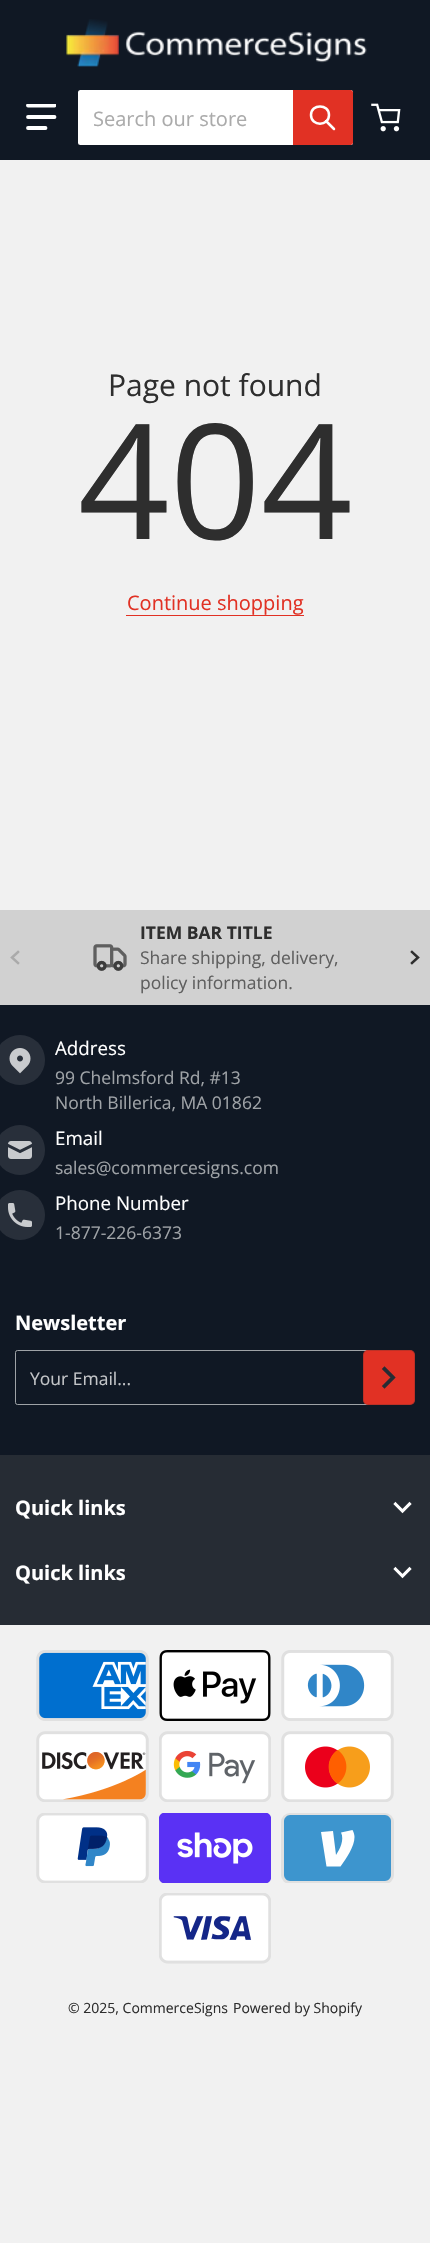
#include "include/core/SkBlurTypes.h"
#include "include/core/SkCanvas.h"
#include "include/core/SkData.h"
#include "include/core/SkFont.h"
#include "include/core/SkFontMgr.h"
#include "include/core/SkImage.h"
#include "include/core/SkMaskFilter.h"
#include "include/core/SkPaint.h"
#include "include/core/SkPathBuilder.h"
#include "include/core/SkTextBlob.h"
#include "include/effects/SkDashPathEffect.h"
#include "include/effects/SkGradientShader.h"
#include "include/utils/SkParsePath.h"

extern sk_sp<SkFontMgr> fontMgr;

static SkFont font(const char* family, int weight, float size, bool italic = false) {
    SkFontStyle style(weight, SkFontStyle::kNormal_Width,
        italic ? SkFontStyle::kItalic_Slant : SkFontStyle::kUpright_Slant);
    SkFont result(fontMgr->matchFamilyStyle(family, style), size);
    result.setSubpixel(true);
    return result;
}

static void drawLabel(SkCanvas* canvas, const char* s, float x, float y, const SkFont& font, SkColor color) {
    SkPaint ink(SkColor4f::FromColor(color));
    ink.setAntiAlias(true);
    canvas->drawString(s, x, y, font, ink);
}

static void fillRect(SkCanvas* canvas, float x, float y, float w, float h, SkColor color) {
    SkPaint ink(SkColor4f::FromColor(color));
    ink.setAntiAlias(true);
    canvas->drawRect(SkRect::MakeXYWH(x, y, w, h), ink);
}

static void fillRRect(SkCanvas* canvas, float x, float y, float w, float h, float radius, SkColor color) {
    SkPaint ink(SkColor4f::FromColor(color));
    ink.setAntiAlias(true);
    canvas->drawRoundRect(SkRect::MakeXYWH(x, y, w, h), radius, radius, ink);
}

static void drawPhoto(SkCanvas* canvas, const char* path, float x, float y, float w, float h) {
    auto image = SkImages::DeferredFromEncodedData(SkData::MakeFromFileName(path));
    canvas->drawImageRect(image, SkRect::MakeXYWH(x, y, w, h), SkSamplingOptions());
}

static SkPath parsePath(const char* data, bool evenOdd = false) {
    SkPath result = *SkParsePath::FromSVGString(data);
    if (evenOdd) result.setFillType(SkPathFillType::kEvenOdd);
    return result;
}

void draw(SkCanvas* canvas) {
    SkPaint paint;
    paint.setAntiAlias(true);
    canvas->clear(0xFFF1F1F1);
    fillRect(canvas, 0, 0, 430, 160, 0xFF101824);
    drawPhoto(canvas, "assets/img1.png", 66, 19, 301, 48);
    canvas->save();
    canvas->clipRect(SkRect::MakeXYWH(26, 104, 30, 27));
    paint.setStroke(true);
    paint.setStrokeWidth(3.8f);
    paint.setStrokeCap(SkPaint::kRound_Cap);
    paint.setColor(0xFFFFFFFF);
    canvas->drawPath(parsePath("M28 105.5H54.5"), paint);
    canvas->restore();
    canvas->drawPath(parsePath("M28 117H54.5M28 128H45.5"), paint);
    fillRRect(canvas, 78, 90, 275, 55, 2.5f, 0xFFFFFFFF);
    SkFont font1 = font("Open Sans", 400, 20);
    drawLabel(canvas, "Search our store", 93, 126, font1, 0xFFABABAB);
    paint.setStroke(false);
    paint.setColor(0xFFE13124);
    canvas->drawPath(parsePath("M293 90H350.5C352 90 353 91 353 92.5V142.5C353 144 352 145 350.5 145H293Z"), paint);
    paint.setStroke(true);
    paint.setStrokeWidth(2.5f);
    paint.setStrokeJoin(SkPaint::kRound_Join);
    paint.setColor(0xFFFFFFFF);
    canvas->drawPath(parsePath("M334 129L326 121M329 115C329 126.5 311 126.5 311 115C311 103.5 329 103.5 329 115Z"), paint);
    drawPhoto(canvas, "assets/img2.png", 371, 103, 30, 29);
    SkFont font2 = font("Open Sans", 400, 30);
    drawLabel(canvas, "Page not found", 108, 396, font2, 0xFF2E2E2E);
    SkFont font3 = font("Open Sans", 400, 160);
    drawLabel(canvas, "404", 78, 539, font3, 0xFF2E2E2E);
    drawLabel(canvas, "Continue shopping", 127, 610, font1, 0xFFE13124);
    fillRect(canvas, 126, 615, 178, 1, 0xFFE13124);
    fillRect(canvas, 0, 910, 430, 95, 0xFFD1D1D1);
    drawPhoto(canvas, "assets/img3.png", 93, 944, 34, 27);
    SkFont font4 = font("Open Sans", 700, 17.5f);
    drawLabel(canvas, "ITEM BAR TITLE", 140, 939, font4, 0xFF2E2E2E);
    SkFont font5 = font("Open Sans", 400, 17.5f);
    drawLabel(canvas, "Share shipping, delivery,", 140, 964, font5, 0xFF5F5F5F);
    drawLabel(canvas, "policy information.", 140, 989, font5, 0xFF5F5F5F);
    paint.setStrokeCap(SkPaint::kSquare_Cap);
    paint.setStrokeJoin(SkPaint::kMiter_Join);
    paint.setColor(0xFFAAAAAA);
    canvas->drawPath(parsePath("M18 952L12 957.5L18 963"), paint);
    paint.setColor(0xFF2E2E2E);
    canvas->drawPath(parsePath("M412 963L418 957.5L412 952"), paint);
    fillRect(canvas, 0, 1455, 430, 170, 0xFF262C34);
    fillRect(canvas, 0, 1005, 430, 450, 0xFF101824);
    paint.setStroke(false);
    paint.setColor(0xFF282F3A);
    canvas->drawCircle(20, 1060, 25, paint);
    drawPhoto(canvas, "assets/img4.png", 9, 1048, 22, 26);
    SkFont font6 = font("Open Sans", 400, 18.75f);
    drawLabel(canvas, "Address", 55, 1055, font6, 0xFFFFFFFF);
    drawLabel(canvas, "99 Chelmsford Rd, #13", 55, 1084, font5, 0xFF9FA3A7);
    drawLabel(canvas, "North Billerica, MA 01862", 55, 1109, font5, 0xFF9FA3A7);
    canvas->drawCircle(20, 1150, 25, paint);
    drawPhoto(canvas, "assets/img5.png", 8, 1141, 24, 18);
    drawLabel(canvas, "Email", 55, 1145, font6, 0xFFFFFFFF);
    drawLabel(canvas, "sales@commercesigns.com", 55, 1174, font5, 0xFF9FA3A7);
    canvas->drawCircle(20, 1215, 25, paint);
    drawPhoto(canvas, "assets/img6.png", 8, 1203, 24, 24);
    drawLabel(canvas, "Phone Number", 55, 1210, font6, 0xFFFFFFFF);
    drawLabel(canvas, "1-877-226-6373", 55, 1239, font5, 0xFF9FA3A7);
    SkFont font7 = font("Open Sans", 700, 20);
    drawLabel(canvas, "Newsletter", 15, 1330, font7, 0xFFFFFFFF);
    paint.setStroke(true);
    paint.setStrokeWidth(1);
    paint.setStrokeCap(SkPaint::kButt_Cap);
    paint.setColor(0xFF9FA3A7);
    canvas->drawRoundRect(SkRect::MakeXYWH(15.5f, 1350.5f, 379, 54), 2, 2, paint);
    drawLabel(canvas, "Your Email...", 30, 1385, font5, 0xFFC3C5C8);
    fillRRect(canvas, 363, 1350, 52, 55, 5, 0xFFE13124);
    paint.setColor(0x332E2E2E);
    canvas->drawRoundRect(SkRect::MakeXYWH(363.5f, 1350.5f, 51, 54), 4.5f, 4.5f, paint);
    paint.setStrokeWidth(3.8f);
    paint.setStrokeCap(SkPaint::kSquare_Cap);
    paint.setColor(0xFF262C34);
    canvas->drawPath(parsePath("M384.5 1386L393 1377.5L384.5 1369"), paint);
    drawLabel(canvas, "Quick links", 15, 1515, font7, 0xFFFFFFFF);
    paint.setStrokeWidth(3.1f);
    paint.setColor(0xFFFFFFFF);
    canvas->drawPath(parsePath("M395.5 1504L402.5 1511L409.5 1504"), paint);
    drawLabel(canvas, "Quick links", 15, 1580, font7, 0xFFFFFFFF);
    canvas->drawPath(parsePath("M395.5 1569L402.5 1576L409.5 1569"), paint);
    drawPhoto(canvas, "assets/img7.png", 36, 1650, 113, 71);
    drawPhoto(canvas, "assets/img8.png", 159, 1650, 112, 71);
    drawPhoto(canvas, "assets/img9.png", 281, 1650, 113, 71);
    drawPhoto(canvas, "assets/img10.png", 36, 1731, 113, 71);
    drawPhoto(canvas, "assets/img11.png", 159, 1731, 112, 71);
    drawPhoto(canvas, "assets/img12.png", 281, 1731, 113, 71);
    drawPhoto(canvas, "assets/img13.png", 36, 1813, 113, 70);
    drawPhoto(canvas, "assets/img14.png", 159, 1813, 112, 70);
    canvas->save();
    canvas->clipRect(SkRect::MakeXYWH(281, 1813, 113, 70));
    fillRRect(canvas, 281, 1813, 113, 71, 9, 0xFFE0E0E0);
    canvas->restore();
    paint.setStroke(false);
    paint.setColor(0xFF3D95CE);
    canvas->drawPath(parsePath("M385 1815C388 1815 391 1818 391 1821V1875C391 1878 388 1881 385 1881H290C287 1881 284 1878 284 1875V1821C284 1818 287 1815 290 1815H385", true), paint);
    paint.setColor(0xFFFFFFFF);
    canvas->drawPath(parsePath("M354.5 1837C354.5 1846.5 346.5 1858 340.5 1866.5H326.5L321 1832L333 1831L336 1855C340 1849 344.5 1840 341 1832.5L352.5 1830C353.5 1832 354.5 1834.5 354.5 1837Z"), paint);
    drawPhoto(canvas, "assets/img15.png", 159, 1893, 112, 71);
    SkFont font8 = font("Open Sans", 400, 14);
    drawLabel(canvas, "© 2025, CommerceSigns", 68, 2013, font8, 0xFF2E2E2E);
    drawLabel(canvas, "Powered by Shopify", 233, 2013, font8, 0xFF2E2E2E);
}
